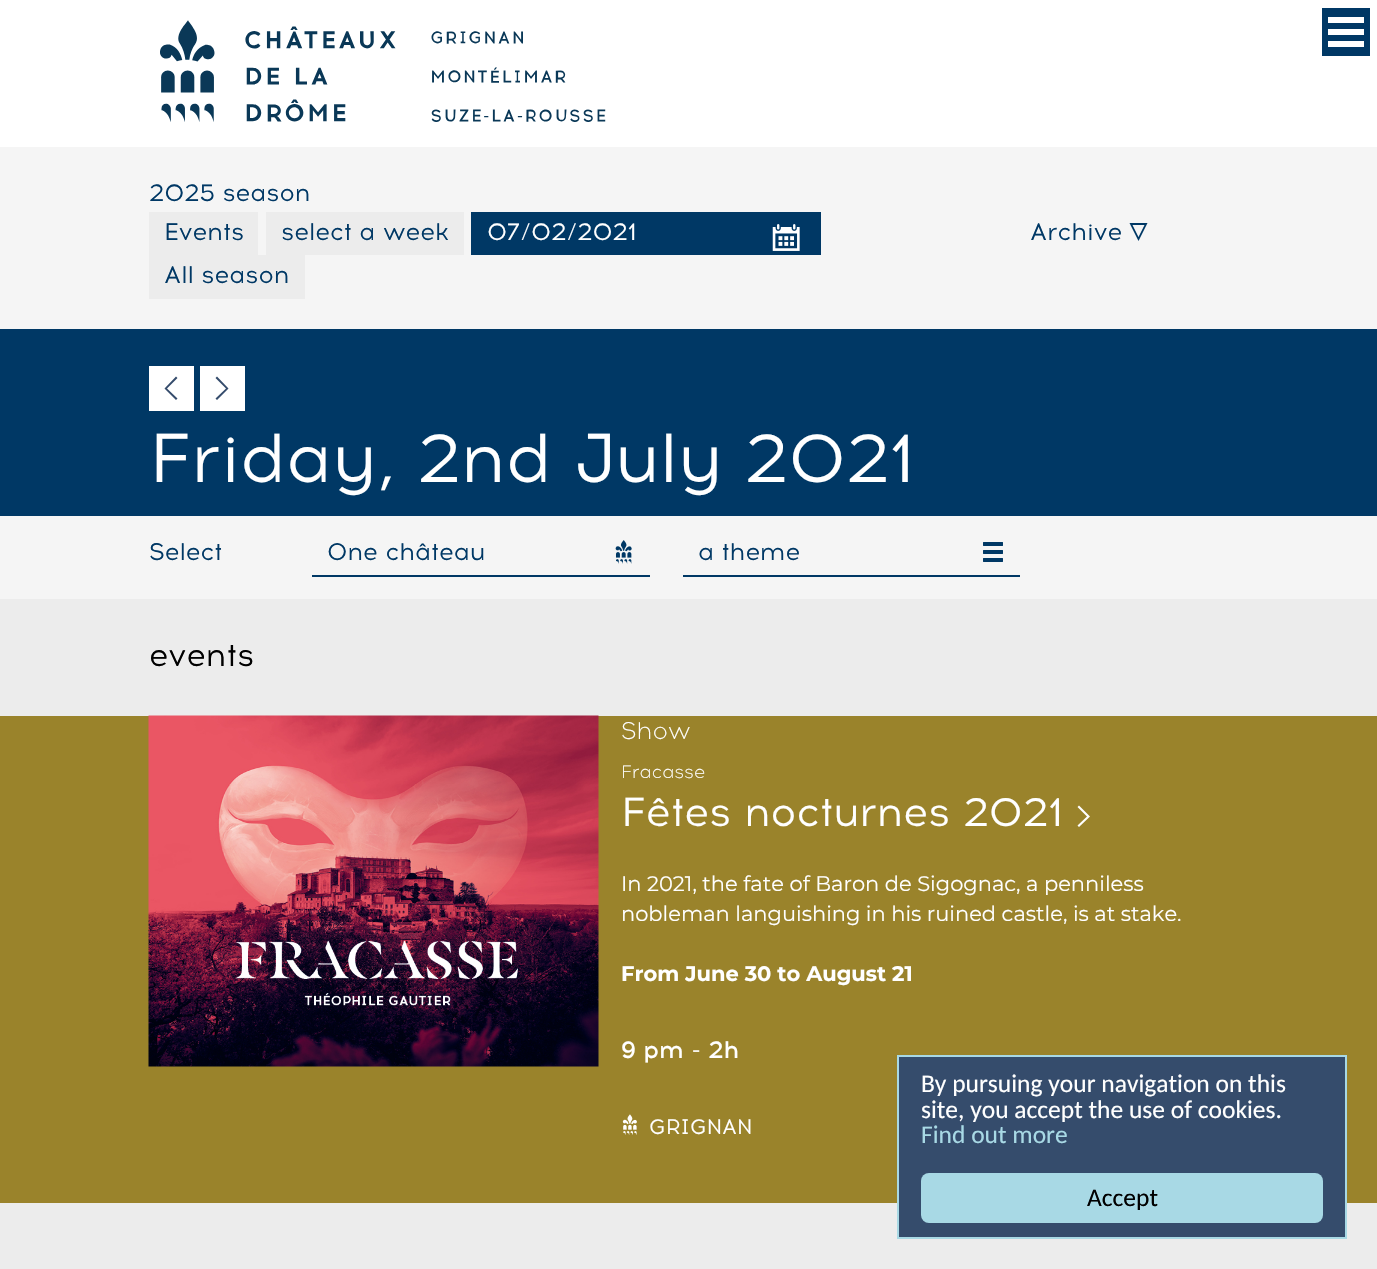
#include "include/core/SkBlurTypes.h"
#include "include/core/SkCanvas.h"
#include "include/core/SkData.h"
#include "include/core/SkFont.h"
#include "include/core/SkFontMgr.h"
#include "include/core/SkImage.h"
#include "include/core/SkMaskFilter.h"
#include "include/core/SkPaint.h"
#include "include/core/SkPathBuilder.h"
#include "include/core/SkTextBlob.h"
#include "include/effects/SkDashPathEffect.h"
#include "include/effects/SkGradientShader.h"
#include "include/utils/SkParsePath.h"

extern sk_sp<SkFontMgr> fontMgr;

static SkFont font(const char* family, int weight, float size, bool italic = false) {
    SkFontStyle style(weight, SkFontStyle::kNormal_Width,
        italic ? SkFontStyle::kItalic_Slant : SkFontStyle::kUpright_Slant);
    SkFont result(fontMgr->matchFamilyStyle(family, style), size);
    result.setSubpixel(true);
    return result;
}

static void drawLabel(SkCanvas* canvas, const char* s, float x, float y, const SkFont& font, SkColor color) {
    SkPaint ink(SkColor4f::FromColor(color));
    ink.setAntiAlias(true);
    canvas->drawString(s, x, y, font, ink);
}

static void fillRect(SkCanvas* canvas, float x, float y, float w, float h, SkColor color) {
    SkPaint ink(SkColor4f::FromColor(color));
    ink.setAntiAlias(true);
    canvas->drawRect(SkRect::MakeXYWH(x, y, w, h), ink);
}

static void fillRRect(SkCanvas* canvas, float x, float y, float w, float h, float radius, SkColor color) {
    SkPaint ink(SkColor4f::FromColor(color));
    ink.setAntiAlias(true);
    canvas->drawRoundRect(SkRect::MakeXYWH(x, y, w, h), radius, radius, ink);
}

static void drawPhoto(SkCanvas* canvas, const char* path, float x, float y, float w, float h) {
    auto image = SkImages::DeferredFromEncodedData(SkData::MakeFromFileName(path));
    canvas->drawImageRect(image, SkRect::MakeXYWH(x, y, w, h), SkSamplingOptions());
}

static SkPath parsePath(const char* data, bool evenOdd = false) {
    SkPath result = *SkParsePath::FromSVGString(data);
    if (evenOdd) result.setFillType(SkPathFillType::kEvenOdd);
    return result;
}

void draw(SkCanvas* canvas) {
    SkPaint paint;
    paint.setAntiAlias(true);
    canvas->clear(0xFFECECEC);
    fillRect(canvas, 0, 0, 1377, 147, 0xFFFFFFFF);
    drawPhoto(canvas, "assets/img1.png", 160, 20, 446, 102);
    fillRect(canvas, 1322, 8, 48, 48, 0xFF003865);
    fillRect(canvas, 1328, 29, 36, 6, 0xFFFFFFFF);
    fillRect(canvas, 1328, 17, 36, 6, 0xFFFFFFFF);
    fillRect(canvas, 1328, 41, 36, 6, 0xFFFFFFFF);
    fillRect(canvas, 0, 147, 1377, 452, 0xFFF5F5F5);
    SkFont font1 = font("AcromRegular", 400, 24);
    drawLabel(canvas, "2025 season", 149, 201, font1, 0xFF003865);
    fillRect(canvas, 149, 212, 109, 43, 0xFFECECEC);
    drawLabel(canvas, "Events", 164, 240, font1, 0xFF003865);
    fillRect(canvas, 266, 212, 198, 43, 0xFFECECEC);
    drawLabel(canvas, "select a week", 281, 240, font1, 0xFF003865);
    fillRect(canvas, 471, 212, 350, 43, 0xFF003865);
    drawPhoto(canvas, "assets/img2.png", 772, 224, 28, 27);
    drawLabel(canvas, "07/02/2021", 487, 240, font1, 0xFFFFFFFF);
    fillRect(canvas, 149, 255, 156, 44, 0xFFECECEC);
    drawLabel(canvas, "All season", 164, 283, font1, 0xFF003865);
    drawLabel(canvas, "Archive", 1030, 240, font1, 0xFF003865);
    paint.setColor(0xFF003865);
    canvas->drawPath(parsePath("M1138.5 241L1129.5 223H1147.5ZM1132.5 225L1138.5 237L1144.5 225Z"), paint);
    fillRect(canvas, 0, 329, 1377, 187, 0xFF003865);
    fillRect(canvas, 149, 366, 45, 45, 0xFFFFFFFF);
    paint.setColor(0xFF354C6C);
    canvas->drawPath(parsePath("M177.5 398.5L176 400L164.5 388.5L176 376.5L177.5 378L167 388.5Z"), paint);
    fillRect(canvas, 200, 366, 45, 45, 0xFFFFFFFF);
    canvas->drawPath(parsePath("M215.5 378L217 376.5L228.5 388.5L217 400L215.5 398.5L226 388.5Z"), paint);
    SkFont font2 = font("AcromRegular", 400, 69);
    drawLabel(canvas, "Friday, 2nd July 2021", 149, 482, font2, 0xFFFFFFFF);
    drawLabel(canvas, "Select", 149, 560, font1, 0xFF003865);
    fillRect(canvas, 312, 575, 338, 2, 0xFF003865);
    drawLabel(canvas, "One château", 327, 560, font1, 0xFF003865);
    drawPhoto(canvas, "assets/img3.png", 615, 540, 17, 24);
    fillRect(canvas, 683, 575, 337, 2, 0xFF003865);
    drawLabel(canvas, "a theme", 698, 560, font1, 0xFF003865);
    drawPhoto(canvas, "assets/img4.png", 983, 542, 20, 20);
    SkFont font3 = font("AcromRegular", 400, 31.5f);
    drawLabel(canvas, "events", 149, 666, font3, 0xFF000000);
    fillRect(canvas, 0, 716, 1377, 487, 0xFF9A832B);
    drawPhoto(canvas, "assets/img5.png", 148, 715, 451, 352);
    SkFont font4 = font("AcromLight", 400, 24);
    drawLabel(canvas, "Show", 621, 739, font4, 0xFFFFFFFF);
    SkFont font5 = font("AcromLight", 400, 18);
    drawLabel(canvas, "Fracasse", 621, 778, font5, 0xFFFFFFFF);
    SkFont font6 = font("AcromRegular", 400, 40.5f);
    drawLabel(canvas, "Fêtes nocturnes 2021", 621, 826, font6, 0xFFFFFFFF);
    paint.setColor(0xFFFFFFFF);
    canvas->drawPath(parsePath("M1077.5 807L1079 805.5L1090 816.5L1079 827L1077.5 825.5L1087 816.5Z"), paint);
    SkFont font7 = font("Montserrat", 400, 21);
    drawLabel(canvas, "In 2021, the fate of Baron de Sigognac, a penniless", 621, 891, font7, 0xFFFFFFFF);
    drawLabel(canvas, "nobleman languishing in his ruined castle, is at stake.", 621, 921, font7, 0xFFFFFFFF);
    SkFont font8 = font("Montserrat", 700, 21);
    drawLabel(canvas, "From June 30 to August 21", 621, 981, font8, 0xFFFFFFFF);
    SkFont font9 = font("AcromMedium", 400, 24);
    drawLabel(canvas, "9 pm - 2h", 621, 1058, font9, 0xFFFFFFFF);
    drawPhoto(canvas, "assets/img6.png", 622, 1114, 15, 21);
    SkFont font10 = font("AcromRegular", 400, 21);
    drawLabel(canvas, "GRIGNAN", 649, 1134, font10, 0xFFFFFFFF);
    paint.setColor(0xFF354C6C);
    canvas->drawRect(SkRect::MakeXYWH(898, 1056, 448, 182), paint);
    paint.setStroke(true);
    paint.setStrokeWidth(2);
    paint.setColor(0xFFA8D9E5);
    canvas->drawRect(SkRect::MakeXYWH(898, 1056, 448, 182), paint);
    SkFont font11 = font("Carlito", 400, 25.5f);
    drawLabel(canvas, "By pursuing your navigation on this", 921, 1092, font11, 0xFFFFFFFF);
    drawLabel(canvas, "site, you accept the use of cookies.", 921, 1118, font11, 0xFFFFFFFF);
    drawLabel(canvas, "Find out more", 921, 1143, font11, 0xFFA8D9E5);
    fillRRect(canvas, 921, 1173, 402, 50, 8, 0xFFA8D9E5);
    drawLabel(canvas, "Accept", 1087, 1206, font11, 0xFF000000);
}
